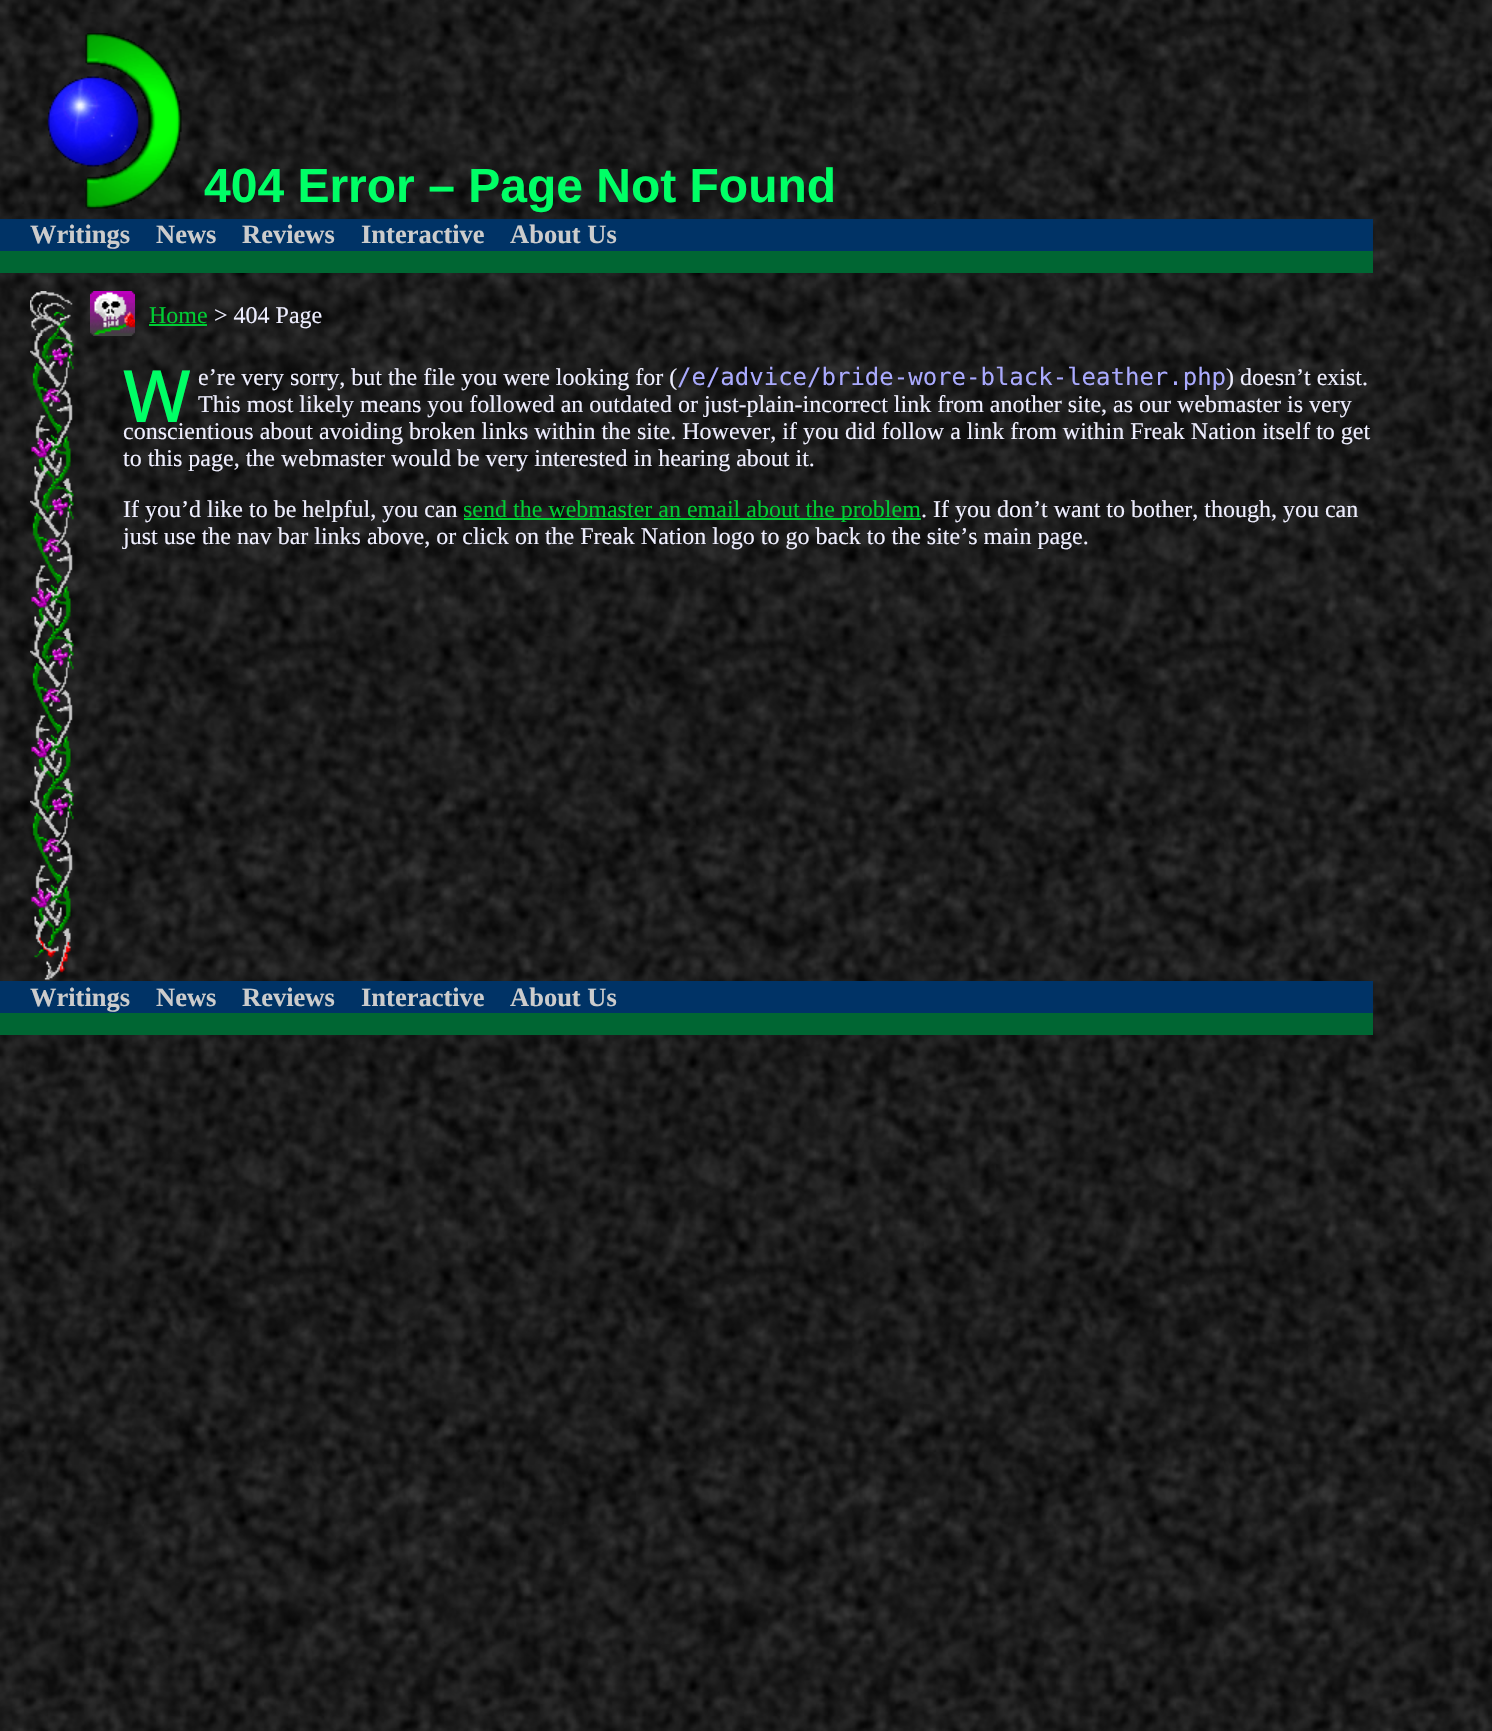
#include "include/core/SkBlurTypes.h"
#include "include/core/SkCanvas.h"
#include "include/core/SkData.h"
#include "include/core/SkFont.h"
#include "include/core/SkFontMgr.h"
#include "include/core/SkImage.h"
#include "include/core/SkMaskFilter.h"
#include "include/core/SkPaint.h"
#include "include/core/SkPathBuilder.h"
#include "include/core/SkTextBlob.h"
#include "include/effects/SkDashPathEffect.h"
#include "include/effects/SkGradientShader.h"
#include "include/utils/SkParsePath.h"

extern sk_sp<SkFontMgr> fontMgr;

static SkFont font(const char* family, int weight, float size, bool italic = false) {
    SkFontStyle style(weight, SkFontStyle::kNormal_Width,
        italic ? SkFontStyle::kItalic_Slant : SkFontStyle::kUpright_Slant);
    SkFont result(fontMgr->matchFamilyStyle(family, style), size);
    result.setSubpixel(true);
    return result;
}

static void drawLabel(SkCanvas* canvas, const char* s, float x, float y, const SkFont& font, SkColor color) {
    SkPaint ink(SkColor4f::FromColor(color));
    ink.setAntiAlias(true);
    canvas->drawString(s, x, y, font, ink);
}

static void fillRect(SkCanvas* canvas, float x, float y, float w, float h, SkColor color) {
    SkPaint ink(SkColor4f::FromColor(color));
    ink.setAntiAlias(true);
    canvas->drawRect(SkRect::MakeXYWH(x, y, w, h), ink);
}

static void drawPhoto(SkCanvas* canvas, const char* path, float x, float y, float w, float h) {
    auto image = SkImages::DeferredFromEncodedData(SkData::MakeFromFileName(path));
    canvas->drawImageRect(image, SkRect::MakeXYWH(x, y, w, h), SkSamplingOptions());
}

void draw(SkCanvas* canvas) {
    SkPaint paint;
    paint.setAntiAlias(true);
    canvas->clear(0xFFFFFFFF);
    drawPhoto(canvas, "assets/img1.png", 0, 0, 1492, 1731);
    drawPhoto(canvas, "assets/img2.png", 47, 33, 135, 176);
    SkFont font1 = font("Liberation Sans", 700, 48);
    drawLabel(canvas, "404 Error – Page Not Found", 204, 202, font1, 0xFF00FF66);
    fillRect(canvas, 0, 219, 1373, 32, 0xFF003366);
    SkFont font2 = font("Liberation Serif", 700, 26.5f);
    drawLabel(canvas, "Writings", 30, 243, font2, 0xFFCCCCCC);
    drawLabel(canvas, "News", 156, 243, font2, 0xFFCCCCCC);
    drawLabel(canvas, "Reviews", 242, 243, font2, 0xFFCCCCCC);
    drawLabel(canvas, "Interactive", 361, 243, font2, 0xFFCCCCCC);
    drawLabel(canvas, "About Us", 510, 243, font2, 0xFFCCCCCC);
    fillRect(canvas, 0, 251, 1373, 22, 0xFF006633);
    drawPhoto(canvas, "assets/img3.png", 30, 291, 43, 45);
    drawPhoto(canvas, "assets/img4.png", 90, 291, 45, 45);
    SkFont font3 = font("Liberation Serif", 400, 24);
    drawLabel(canvas, "Home", 149, 323, font3, 0xFF00CC33);
    fillRect(canvas, 149, 324, 58, 2, 0xFF00CC33);
    drawLabel(canvas, "> 404 Page", 214, 323, font3, 0xFFEEEEFF);
    drawPhoto(canvas, "assets/img5.png", 30, 336, 44, 150);
    drawPhoto(canvas, "assets/img6.png", 30, 486, 44, 150);
    drawPhoto(canvas, "assets/img7.png", 30, 636, 44, 150);
    drawPhoto(canvas, "assets/img8.png", 30, 786, 44, 150);
    drawPhoto(canvas, "assets/img9.png", 34, 936, 37, 44);
    SkFont font4 = font("Noto Sans", 500, 72);
    drawLabel(canvas, "W", 123, 422, font4, 0xFF00FF66);
    drawLabel(canvas, "e’re very sorry, but the file you were looking for (", 198, 385, font3, 0xFFEEEEFF);
    SkFont font5 = font("DejaVu Sans Mono", 400, 24);
    drawLabel(canvas, "/e/advice/bride-wore-black-leather.php", 677, 385, font5, 0xFFAAAAFF);
    drawLabel(canvas, ") doesn’t exist.", 1226, 385, font3, 0xFFEEEEFF);
    drawLabel(canvas, "This most likely means you followed an outdated or just-plain-incorrect link from another site, as our webmaster is very", 198, 412, font3, 0xFFEEEEFF);
    drawLabel(canvas, "conscientious about avoiding broken links within the site. However, if you did follow a link from within Freak Nation itself to get", 123, 439, font3, 0xFFEEEEFF);
    drawLabel(canvas, "to this page, the webmaster would be very interested in hearing about it.", 123, 466, font3, 0xFFEEEEFF);
    drawLabel(canvas, "If you’d like to be helpful, you can", 123, 517, font3, 0xFFEEEEFF);
    fillRect(canvas, 464, 518, 457, 2, 0xFF00CC33);
    drawLabel(canvas, "send the webmaster an email about the problem", 463, 517, font3, 0xFF00CC33);
    drawLabel(canvas, ". If you don’t want to bother, though, you can", 921, 517, font3, 0xFFEEEEFF);
    drawLabel(canvas, "just use the nav bar links above, or click on the Freak Nation logo to go back to the site’s main page.", 123, 544, font3, 0xFFEEEEFF);
    fillRect(canvas, 0, 981, 1373, 32, 0xFF003366);
    drawLabel(canvas, "Writings", 30, 1006, font2, 0xFFCCCCCC);
    drawLabel(canvas, "News", 156, 1006, font2, 0xFFCCCCCC);
    drawLabel(canvas, "Reviews", 242, 1006, font2, 0xFFCCCCCC);
    drawLabel(canvas, "Interactive", 361, 1006, font2, 0xFFCCCCCC);
    drawLabel(canvas, "About Us", 510, 1006, font2, 0xFFCCCCCC);
    fillRect(canvas, 0, 1013, 1373, 22, 0xFF006633);
}
